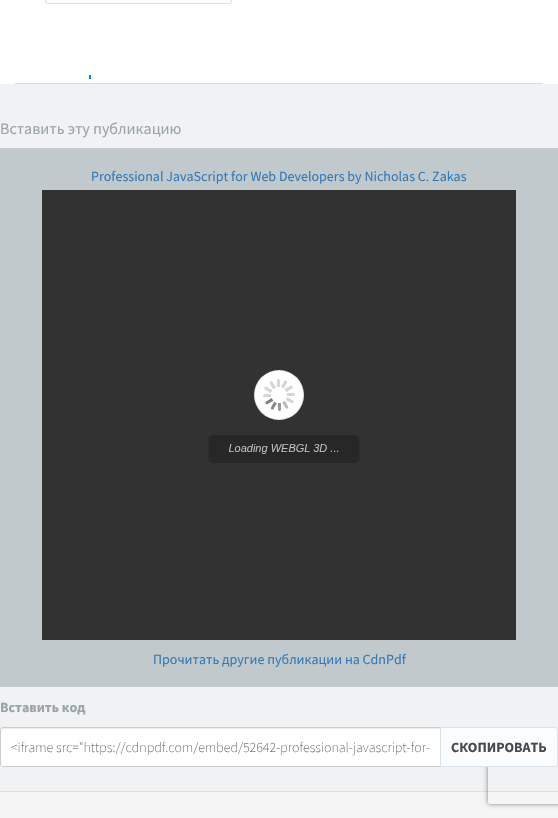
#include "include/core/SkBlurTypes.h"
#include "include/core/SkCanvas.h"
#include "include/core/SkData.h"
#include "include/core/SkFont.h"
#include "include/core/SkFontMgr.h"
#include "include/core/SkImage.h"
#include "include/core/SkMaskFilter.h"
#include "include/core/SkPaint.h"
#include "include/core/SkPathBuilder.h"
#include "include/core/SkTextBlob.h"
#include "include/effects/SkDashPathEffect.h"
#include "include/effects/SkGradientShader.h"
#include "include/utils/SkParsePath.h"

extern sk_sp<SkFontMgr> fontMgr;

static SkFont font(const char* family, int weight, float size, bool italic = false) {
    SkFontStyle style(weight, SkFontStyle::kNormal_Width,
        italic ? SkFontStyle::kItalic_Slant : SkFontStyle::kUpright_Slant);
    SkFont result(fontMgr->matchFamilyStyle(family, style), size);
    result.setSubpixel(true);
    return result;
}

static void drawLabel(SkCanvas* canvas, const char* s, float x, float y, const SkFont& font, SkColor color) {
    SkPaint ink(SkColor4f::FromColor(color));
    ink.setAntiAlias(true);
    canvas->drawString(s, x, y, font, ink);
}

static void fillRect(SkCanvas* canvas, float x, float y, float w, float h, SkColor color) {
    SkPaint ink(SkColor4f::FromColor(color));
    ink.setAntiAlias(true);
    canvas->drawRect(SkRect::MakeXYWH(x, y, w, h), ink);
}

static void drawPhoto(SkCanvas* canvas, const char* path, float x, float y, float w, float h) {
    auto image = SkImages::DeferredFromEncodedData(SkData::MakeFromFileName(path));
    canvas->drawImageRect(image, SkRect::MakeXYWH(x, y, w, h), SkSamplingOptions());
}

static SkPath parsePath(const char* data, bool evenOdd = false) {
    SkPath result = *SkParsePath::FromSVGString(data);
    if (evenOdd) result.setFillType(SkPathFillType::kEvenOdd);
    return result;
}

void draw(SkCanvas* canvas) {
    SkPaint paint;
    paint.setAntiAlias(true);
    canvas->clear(0xFFFFFFFF);
    paint.setColor(0xFFFBFCFD);
    canvas->drawRoundRect(SkRect::MakeXYWH(45.5f, -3.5f, 186, 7), 2.5f, 2.5f, paint);
    paint.setStroke(true);
    paint.setStrokeWidth(1);
    paint.setColor(0xFFD9E3EC);
    canvas->drawRoundRect(SkRect::MakeXYWH(45.5f, -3.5f, 186, 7), 2.5f, 2.5f, paint);
    fillRect(canvas, 15, 83, 528, 1, 0xFFDDDDDD);
    fillRect(canvas, 89, 75, 2, 4, 0xFF0089CB);
    fillRect(canvas, 0, 84, 558, 707, 0xFFF1F2F3);
    SkFont font1 = font("Source Sans Pro", 400, 16);
    drawLabel(canvas, "Вставить эту публикацию", 0, 134, font1, 0xFF99A5AB);
    fillRect(canvas, 0, 148, 558, 539, 0xFFC2C9CC);
    SkFont font2 = font("Source Sans Pro", 400, 14);
    drawLabel(canvas, "Professional JavaScript for Web Developers by Nicholas C. Zakas", 91, 181, font2, 0xFF337AB7);
    drawPhoto(canvas, "assets/img1.png", 42, 190, 474, 450);
    drawLabel(canvas, "Прочитать другие публикации на CdnPdf", 153, 664, font2, 0xFF337AB7);
    SkFont font3 = font("Source Sans Pro", 700, 14);
    drawLabel(canvas, "Вставить код", 0, 712, font3, 0xFF99A5AB);
    paint.setStroke(false);
    paint.setColor(0xFFFFFFFF);
    canvas->drawPath(parsePath("M3 727H441V767H3C1.5 767 0 765.5 0 764V730C0 728.5 1.5 727 3 727Z"), paint);
    paint.setColor(0xFFECECEC);
    canvas->drawPath(parsePath("M3 729H440V728H3C1 728 1 730 1 731C1 730 2 729 3 729Z"), paint);
    paint.setStroke(true);
    paint.setColor(0xFFCCCCCC);
    canvas->drawPath(parsePath("M3 727.5H440.5V766.5H3C1.5 766.5 .5 765.5 .5 764V730C.5 728.5 1.5 727.5 3 727.5Z"), paint);
    SkFont font4 = font("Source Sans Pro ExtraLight", 200, 14);
    drawLabel(canvas, "<iframe src=\"https://cdnpdf.com/embed/52642-professional-javascript-for-", 11, 752, font4, 0xFF555555);
    fillRect(canvas, 0, 792, 558, 26, 0xFFF5F5F5);
    fillRect(canvas, 0, 791, 558, 1, 0xFFDDDDDD);
    canvas->save();
    canvas->clipPath(parsePath("M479 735H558V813H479ZM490 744H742C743 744 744 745 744 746V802C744 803 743 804 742 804H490C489 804 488 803 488 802V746C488 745 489 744 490 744Z", true), true);
    paint.setStroke(false);
    paint.setColor(0xFF808080);
    paint.setMaskFilter(SkMaskFilter::MakeBlur(kNormal_SkBlurStyle, 2.5f));
    canvas->drawRoundRect(SkRect::MakeXYWH(488, 744, 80, 60), 2, 2, paint);
    paint.setMaskFilter(nullptr);
    canvas->restore();
    paint.setColor(0xFFFBFCFD);
    canvas->drawPath(parsePath("M440.5 727.5H555C556.5 727.5 557.5 728.5 557.5 730V764C557.5 765.5 556.5 766.5 555 766.5H440.5Z"), paint);
    paint.setStroke(true);
    paint.setColor(0xFFD9E3EC);
    canvas->drawPath(parsePath("M440.5 727.5H555C556.5 727.5 557.5 728.5 557.5 730V764C557.5 765.5 556.5 766.5 555 766.5H440.5Z"), paint);
    drawLabel(canvas, "СКОПИРОВАТЬ", 451, 752, font3, 0xFF444C50);
}
